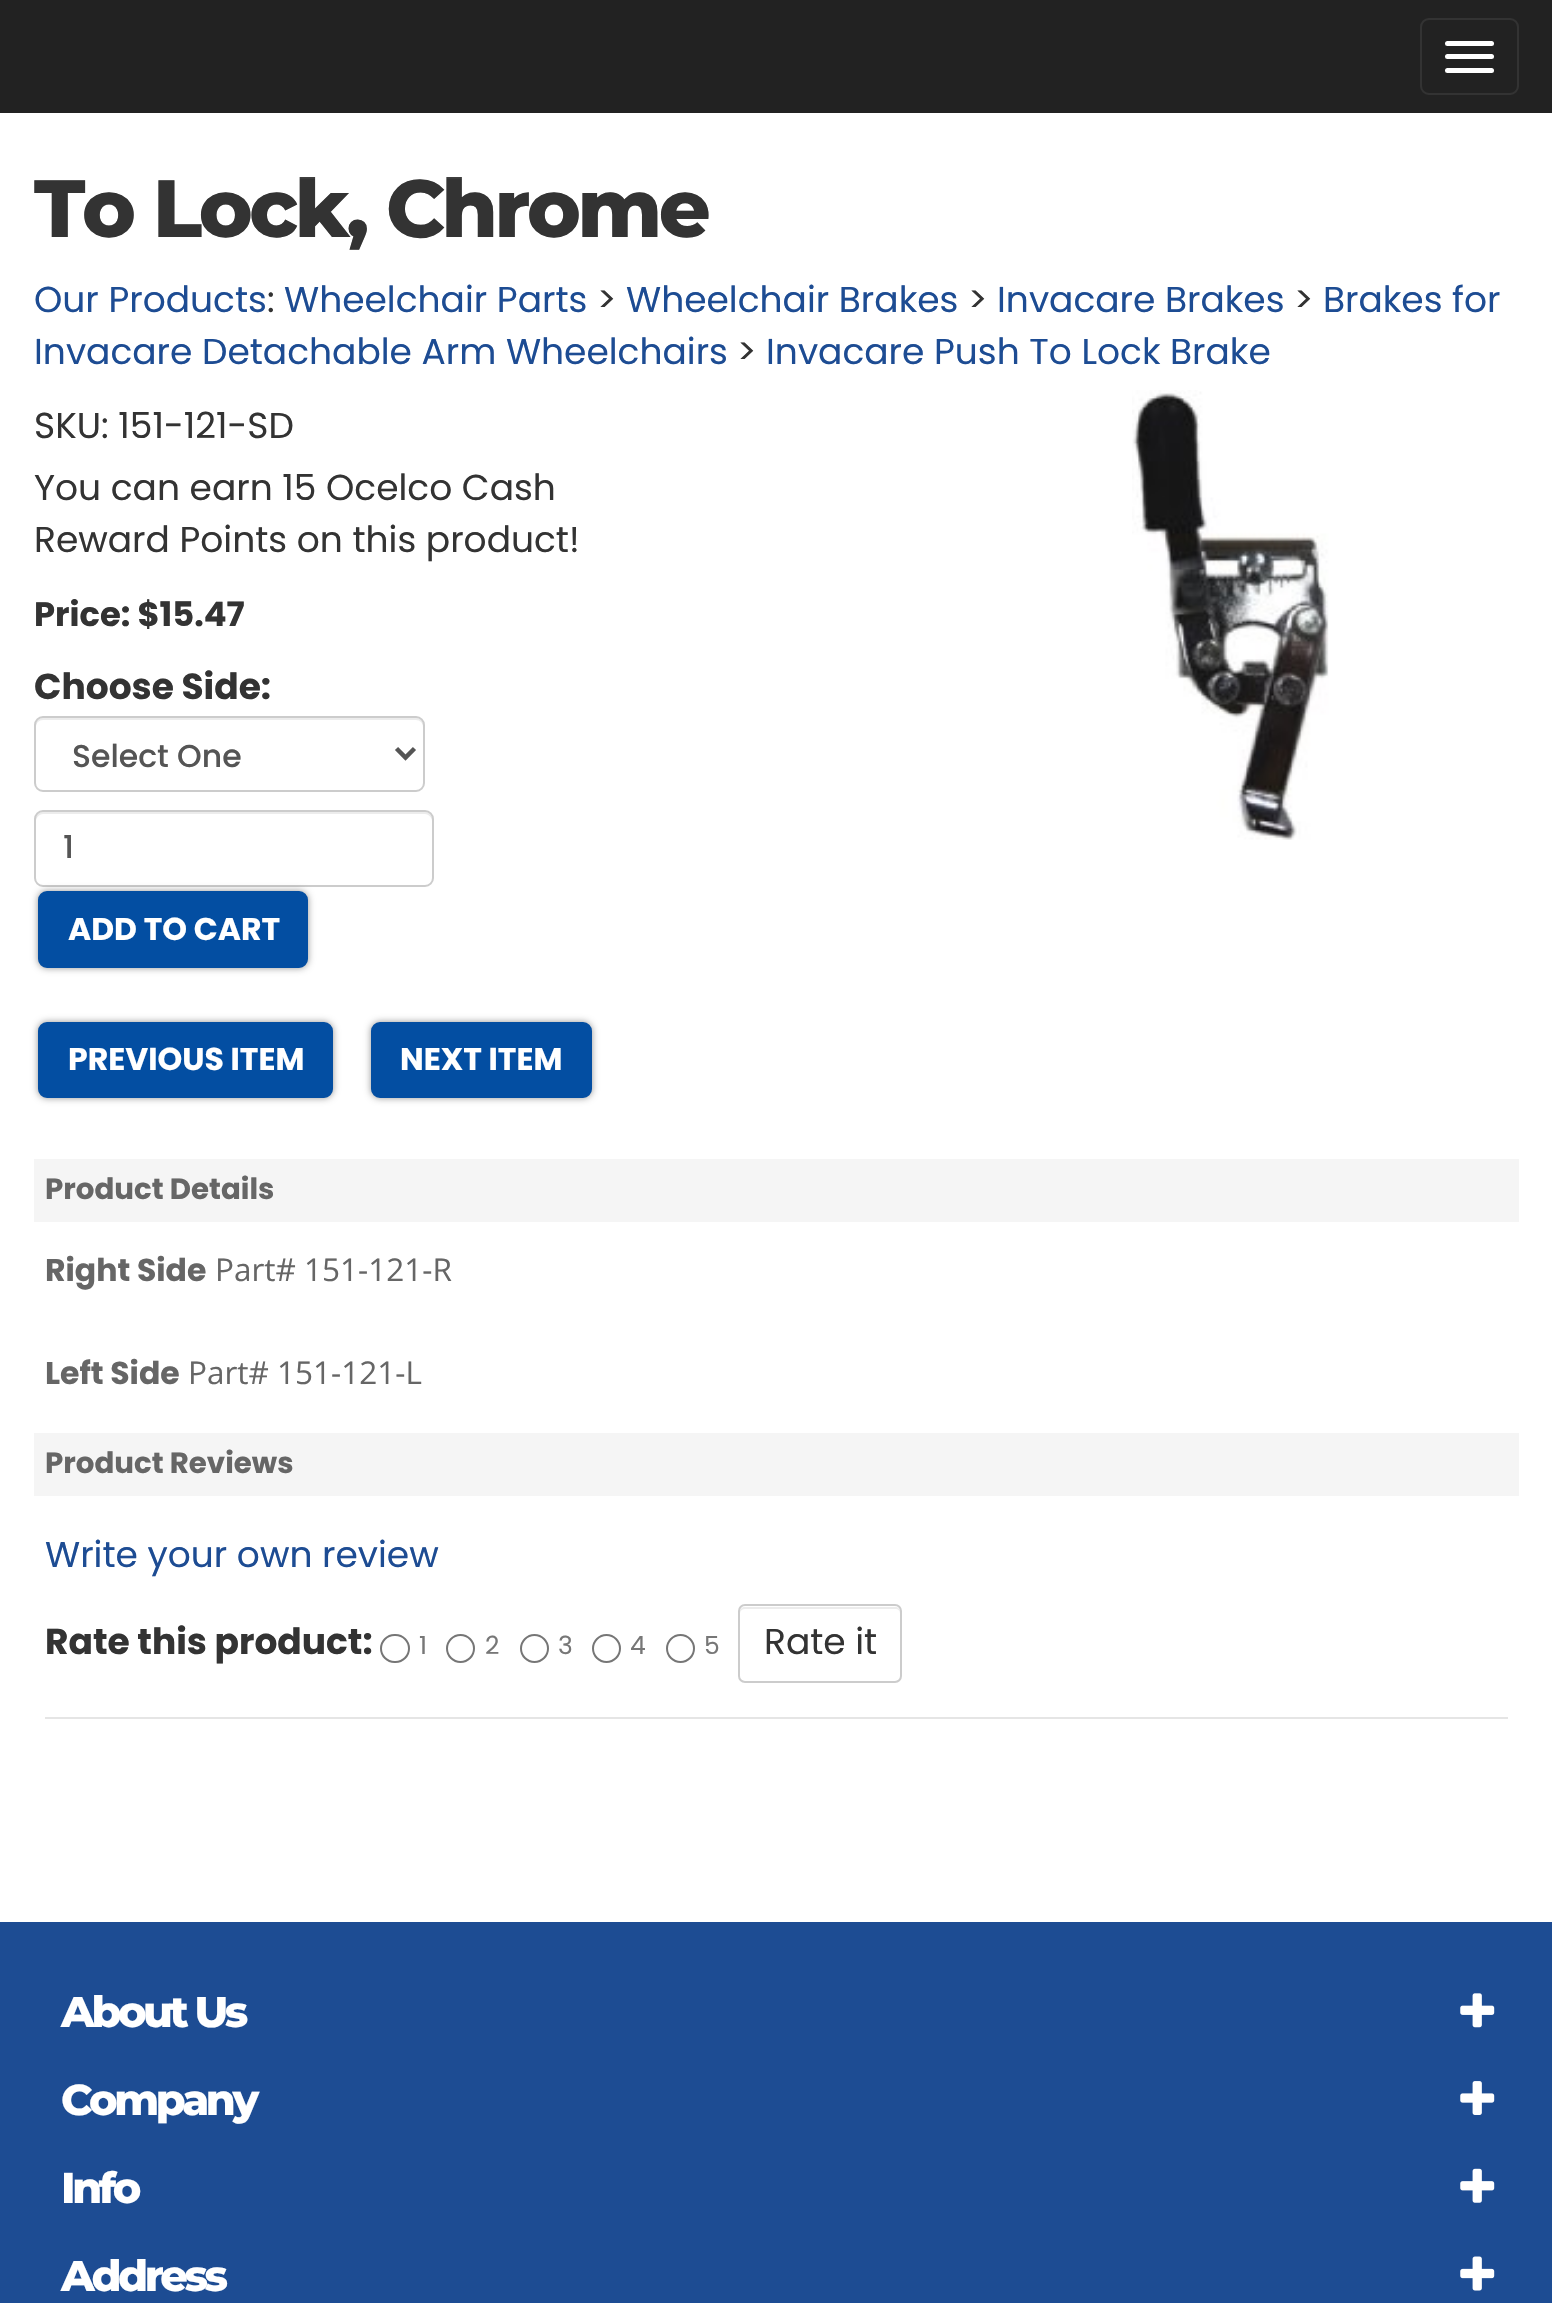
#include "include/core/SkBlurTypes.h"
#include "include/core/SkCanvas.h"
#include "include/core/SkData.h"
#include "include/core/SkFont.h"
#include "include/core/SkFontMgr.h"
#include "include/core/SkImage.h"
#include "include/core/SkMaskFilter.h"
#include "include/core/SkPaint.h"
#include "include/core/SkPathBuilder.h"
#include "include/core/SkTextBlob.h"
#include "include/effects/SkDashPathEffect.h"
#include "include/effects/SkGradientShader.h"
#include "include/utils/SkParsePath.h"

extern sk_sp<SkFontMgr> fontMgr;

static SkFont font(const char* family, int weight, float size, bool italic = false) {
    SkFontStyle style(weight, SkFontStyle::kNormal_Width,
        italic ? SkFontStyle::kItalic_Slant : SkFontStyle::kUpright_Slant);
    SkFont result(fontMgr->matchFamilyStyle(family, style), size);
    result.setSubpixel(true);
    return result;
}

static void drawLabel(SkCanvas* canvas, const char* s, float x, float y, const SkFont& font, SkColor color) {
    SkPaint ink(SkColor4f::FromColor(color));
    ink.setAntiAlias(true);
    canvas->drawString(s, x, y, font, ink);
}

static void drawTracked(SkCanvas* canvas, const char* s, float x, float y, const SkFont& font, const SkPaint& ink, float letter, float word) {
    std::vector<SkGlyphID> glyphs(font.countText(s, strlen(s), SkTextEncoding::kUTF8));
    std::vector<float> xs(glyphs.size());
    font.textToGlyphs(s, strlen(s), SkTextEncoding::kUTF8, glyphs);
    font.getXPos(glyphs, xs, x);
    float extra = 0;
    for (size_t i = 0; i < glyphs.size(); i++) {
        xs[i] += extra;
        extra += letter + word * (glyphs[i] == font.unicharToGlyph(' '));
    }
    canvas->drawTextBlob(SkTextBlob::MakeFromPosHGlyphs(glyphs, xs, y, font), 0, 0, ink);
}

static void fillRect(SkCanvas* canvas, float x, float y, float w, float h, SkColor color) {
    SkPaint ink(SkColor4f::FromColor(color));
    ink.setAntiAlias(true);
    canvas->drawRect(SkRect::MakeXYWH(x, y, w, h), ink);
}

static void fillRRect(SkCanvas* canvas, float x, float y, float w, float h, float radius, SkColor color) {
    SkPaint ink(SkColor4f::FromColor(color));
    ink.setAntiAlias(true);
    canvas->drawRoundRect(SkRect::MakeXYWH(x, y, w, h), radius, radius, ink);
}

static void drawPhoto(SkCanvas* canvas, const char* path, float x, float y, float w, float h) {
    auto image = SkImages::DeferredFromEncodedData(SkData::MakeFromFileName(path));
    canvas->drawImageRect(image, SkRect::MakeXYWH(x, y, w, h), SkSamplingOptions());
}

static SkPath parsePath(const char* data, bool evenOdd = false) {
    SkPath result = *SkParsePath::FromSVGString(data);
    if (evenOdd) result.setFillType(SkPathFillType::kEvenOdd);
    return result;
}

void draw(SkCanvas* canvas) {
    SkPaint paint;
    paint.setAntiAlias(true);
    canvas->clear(0xFFFFFFFF);
    fillRect(canvas, 0, 0, 1552, 113, 0xFF222222);
    paint.setStroke(true);
    paint.setStrokeWidth(2);
    paint.setColor(0xFF333333);
    canvas->drawRoundRect(SkRect::MakeXYWH(1421, 19, 97, 75), 8, 8, paint);
    fillRRect(canvas, 1445, 41, 49, 5, 2.5f, 0xFFFFFFFF);
    fillRRect(canvas, 1445, 54, 49, 5, 2.5f, 0xFFFFFFFF);
    fillRRect(canvas, 1445, 68, 49, 5, 2.5f, 0xFFFFFFFF);
    SkFont font1 = font("Montserrat", 800, 81);
    paint.setStroke(false);
    drawTracked(canvas, "To Lock, Chrome", 34, 237, font1, paint, -3.4f, 0);
    {
        const SkColor colors[] = {0xFFFFFFFF, 0xFFFFFFFF, 0xC4FFFFFF, 0x00FFFFFF};
        const float stops[] = {0, 0.26f, 0.53f, 1};
        const SkPoint ends[] = {{776, 112}, {776, 180}};
        paint.setShader(SkGradientShader::MakeLinear(ends, colors, stops, 4, SkTileMode::kClamp));
        paint.setAlpha(255);
    }
    canvas->drawRect(SkRect::MakeXYWH(299, 177, 163, 2), paint);
    SkFont font2 = font("Poppins", 400, 36);
    drawLabel(canvas, "Our Products", 34, 312, font2, 0xFF1D4C93);
    drawLabel(canvas, ":", 267, 312, font2, 0xFF333333);
    drawLabel(canvas, "Wheelchair Parts", 284, 312, font2, 0xFF1D4C93);
    drawLabel(canvas, ">", 597, 312, font2, 0xFF333333);
    drawLabel(canvas, "Wheelchair Brakes", 626, 312, font2, 0xFF1D4C93);
    drawLabel(canvas, ">", 968, 312, font2, 0xFF333333);
    drawLabel(canvas, "Invacare Brakes", 997, 312, font2, 0xFF1D4C93);
    drawLabel(canvas, ">", 1294, 312, font2, 0xFF333333);
    drawLabel(canvas, "Brakes for", 1323, 312, font2, 0xFF1D4C93);
    drawLabel(canvas, "Invacare Detachable Arm Wheelchairs", 34, 364, font2, 0xFF1D4C93);
    drawLabel(canvas, ">", 737, 364, font2, 0xFF333333);
    drawLabel(canvas, "Invacare Push To Lock Brake", 766, 364, font2, 0xFF1D4C93);
    drawLabel(canvas, "SKU: 151-121-SD", 34, 438, font2, 0xFF333333);
    drawLabel(canvas, "You can earn 15 Ocelco Cash", 34, 500, font2, 0xFF333333);
    drawLabel(canvas, "Reward Points on this product!", 34, 552, font2, 0xFF333333);
    SkFont font3 = font("Poppins", 700, 33.75f);
    drawLabel(canvas, "Price: $15.47", 34, 626, font3, 0xFF333333);
    SkFont font4 = font("Poppins", 700, 36);
    drawLabel(canvas, "Choose Side:", 34, 699, font4, 0xFF333333);
    paint.setShader(nullptr);
    paint.setColor(0xFFECECEC);
    canvas->drawPath(parsePath("M43 720H416C420 720 423 723 423 727V725C423 721 420 718 416 718H43C39 718 36 721 36 725V727C36 723 39 720 43 720Z"), paint);
    paint.setStroke(true);
    paint.setColor(0xFFCCCCCC);
    canvas->drawRoundRect(SkRect::MakeXYWH(35, 717, 389, 74), 8, 8, paint);
    paint.setStrokeWidth(4.5f);
    paint.setColor(0xFF555555);
    canvas->drawPath(parsePath("M396.5 748.5L405.5 757.5L414.5 748.5"), paint);
    SkFont font5 = font("Poppins", 500, 31.5f);
    drawLabel(canvas, "Select One", 72, 767, font5, 0xFF555555);
    paint.setStroke(false);
    paint.setColor(0xFFECECEC);
    canvas->drawPath(parsePath("M43 814H425C429 814 432 818 432 821V819C432 815 429 812 425 812H43C39 812 36 815 36 819V821C36 818 39 814 43 814Z"), paint);
    paint.setStroke(true);
    paint.setStrokeWidth(2);
    paint.setColor(0xFFCCCCCC);
    canvas->drawRoundRect(SkRect::MakeXYWH(35, 811, 398, 75), 8, 8, paint);
    drawLabel(canvas, "1", 63, 858, font5, 0xFF555555);
    paint.setStroke(false);
    paint.setColor(0x6B000000);
    paint.setMaskFilter(SkMaskFilter::MakeBlur(kNormal_SkBlurStyle, 3.5f));
    canvas->drawRoundRect(SkRect::MakeXYWH(38, 891, 270, 77), 9, 9, paint);
    paint.setMaskFilter(nullptr);
    paint.setColor(0xFF034EA2);
    canvas->drawRoundRect(SkRect::MakeXYWH(39, 892, 268, 75), 8, 8, paint);
    paint.setStroke(true);
    canvas->drawRoundRect(SkRect::MakeXYWH(39, 892, 268, 75), 8, 8, paint);
    SkFont font6 = font("Poppins", 700, 31.5f);
    drawLabel(canvas, "ADD TO CART", 68, 940, font6, 0xFFFFFFFF);
    drawPhoto(canvas, "assets/img1.png", 1132, 390, 197, 450);
    paint.setStroke(false);
    paint.setColor(0x6B000000);
    paint.setMaskFilter(SkMaskFilter::MakeBlur(kNormal_SkBlurStyle, 3.5f));
    canvas->drawRoundRect(SkRect::MakeXYWH(38, 1022, 295, 76), 9, 9, paint);
    paint.setMaskFilter(nullptr);
    paint.setColor(0xFF034EA2);
    canvas->drawRoundRect(SkRect::MakeXYWH(39, 1023, 293, 74), 8, 8, paint);
    paint.setStroke(true);
    canvas->drawRoundRect(SkRect::MakeXYWH(39, 1023, 293, 74), 8, 8, paint);
    drawLabel(canvas, "PREVIOUS ITEM", 68, 1070, font6, 0xFFFFFFFF);
    paint.setStroke(false);
    paint.setColor(0x6B000000);
    paint.setMaskFilter(SkMaskFilter::MakeBlur(kNormal_SkBlurStyle, 3.5f));
    canvas->drawRoundRect(SkRect::MakeXYWH(371, 1022, 221, 76), 9, 9, paint);
    paint.setMaskFilter(nullptr);
    paint.setColor(0xFF034EA2);
    canvas->drawRoundRect(SkRect::MakeXYWH(372, 1023, 219, 74), 8, 8, paint);
    paint.setStroke(true);
    canvas->drawRoundRect(SkRect::MakeXYWH(372, 1023, 219, 74), 8, 8, paint);
    drawLabel(canvas, "NEXT ITEM", 400, 1070, font6, 0xFFFFFFFF);
    fillRect(canvas, 34, 1159, 1485, 63, 0xFFF5F5F5);
    SkFont font7 = font("Poppins", 700, 29.25f);
    drawLabel(canvas, "Product Details", 45, 1199, font7, 0xFF666666);
    drawLabel(canvas, "Right Side", 45, 1281, font6, 0xFF666666);
    SkFont font8 = font("Open Sans", 400, 31.5f);
    drawLabel(canvas, "Part# 151-121-R", 215, 1281, font8, 0xFF666666);
    drawLabel(canvas, "Left Side", 45, 1384, font6, 0xFF666666);
    drawLabel(canvas, "Part# 151-121-L", 188, 1384, font8, 0xFF666666);
    fillRect(canvas, 34, 1433, 1485, 63, 0xFFF5F5F5);
    drawLabel(canvas, "Product Reviews", 45, 1473, font7, 0xFF666666);
    drawLabel(canvas, "Write your own review", 45, 1567, font2, 0xFF1D4C93);
    drawLabel(canvas, "Rate this product:", 45, 1654, font4, 0xFF333333);
    paint.setColor(0xFF767676);
    canvas->drawRoundRect(SkRect::MakeXYWH(381, 1635, 28, 27), 13.5f, 13.5f, paint);
    SkFont font9 = font("Poppins", 400, 25);
    drawLabel(canvas, "1", 419, 1654, font9, 0xFF777777);
    canvas->drawCircle(460.5f, 1648.5f, 13.5f, paint);
    drawLabel(canvas, "2", 485, 1654, font9, 0xFF777777);
    canvas->drawCircle(534.5f, 1648.5f, 13.5f, paint);
    drawLabel(canvas, "3", 558, 1654, font9, 0xFF777777);
    canvas->drawCircle(606.5f, 1648.5f, 13.5f, paint);
    drawLabel(canvas, "4", 630, 1654, font9, 0xFF777777);
    canvas->drawCircle(680.5f, 1648.5f, 13.5f, paint);
    drawLabel(canvas, "5", 704, 1654, font9, 0xFF777777);
    paint.setStroke(false);
    paint.setColor(0xFFECECEC);
    canvas->drawPath(parsePath("M745 1609H896C898 1609 900 1611 900 1613V1612C900 1609 898 1607 895 1607H745C742 1607 740 1609 740 1612V1613C740 1611 742 1609 745 1609Z"), paint);
    paint.setStroke(true);
    paint.setColor(0xFFCCCCCC);
    canvas->drawRoundRect(SkRect::MakeXYWH(739, 1605, 162, 77), 6, 6, paint);
    drawLabel(canvas, "Rate it", 764, 1654, font2, 0xFF333333);
    fillRect(canvas, 45, 1717, 1463, 2, 0xFFE5E5E5);
    fillRect(canvas, 0, 1922, 1552, 381, 0xFF1D4C93);
    SkFont font10 = font("Montserrat", 800, 43);
    paint.setStroke(false);
    paint.setColor(0xFFFFFFFF);
    drawTracked(canvas, "About Us", 61, 2027, font10, paint, -3.4f, 0);
    drawPhoto(canvas, "assets/img2.png", 1460, 1993, 35, 35);
    drawTracked(canvas, "Company", 61, 2115, font10, paint, -3.4f, 0);
    drawPhoto(canvas, "assets/img3.png", 1460, 2081, 35, 34);
    drawTracked(canvas, "Info", 61, 2203, font10, paint, -3.4f, 0);
    drawPhoto(canvas, "assets/img4.png", 1460, 2168, 35, 35);
    drawTracked(canvas, "Address", 61, 2291, font10, paint, -3.4f, 0);
    drawPhoto(canvas, "assets/img5.png", 1460, 2256, 35, 35);
}
